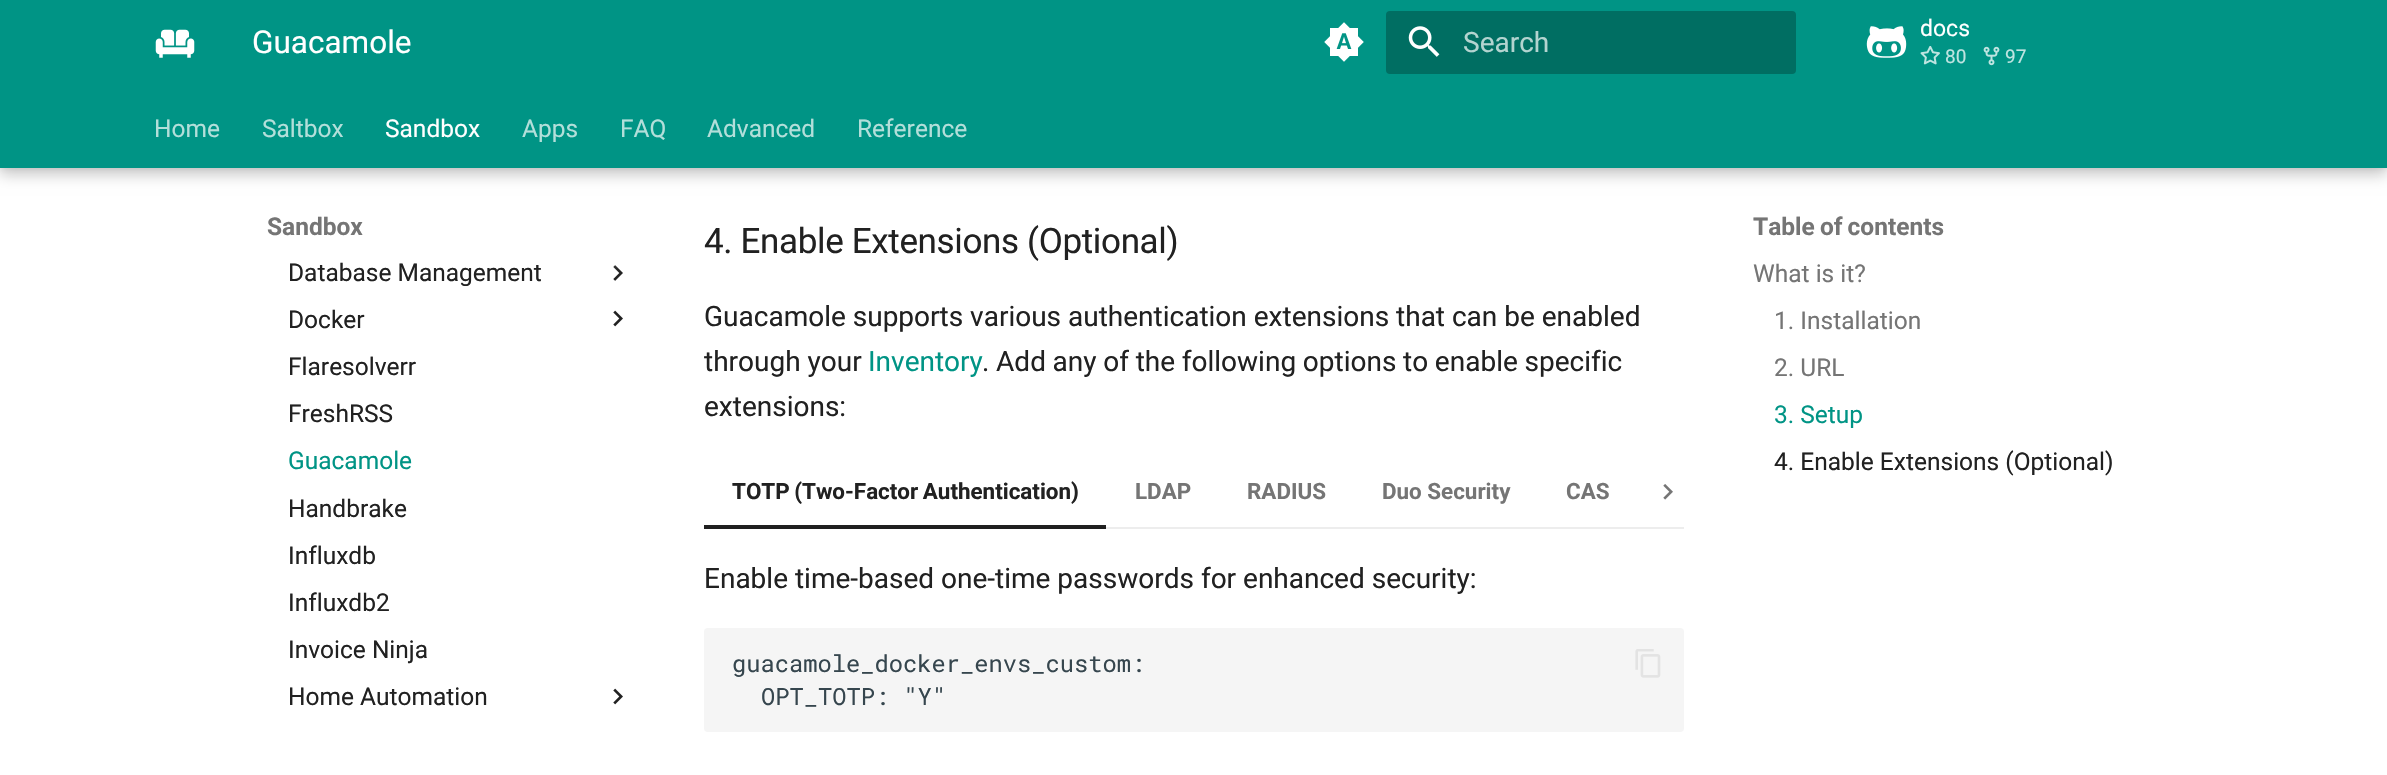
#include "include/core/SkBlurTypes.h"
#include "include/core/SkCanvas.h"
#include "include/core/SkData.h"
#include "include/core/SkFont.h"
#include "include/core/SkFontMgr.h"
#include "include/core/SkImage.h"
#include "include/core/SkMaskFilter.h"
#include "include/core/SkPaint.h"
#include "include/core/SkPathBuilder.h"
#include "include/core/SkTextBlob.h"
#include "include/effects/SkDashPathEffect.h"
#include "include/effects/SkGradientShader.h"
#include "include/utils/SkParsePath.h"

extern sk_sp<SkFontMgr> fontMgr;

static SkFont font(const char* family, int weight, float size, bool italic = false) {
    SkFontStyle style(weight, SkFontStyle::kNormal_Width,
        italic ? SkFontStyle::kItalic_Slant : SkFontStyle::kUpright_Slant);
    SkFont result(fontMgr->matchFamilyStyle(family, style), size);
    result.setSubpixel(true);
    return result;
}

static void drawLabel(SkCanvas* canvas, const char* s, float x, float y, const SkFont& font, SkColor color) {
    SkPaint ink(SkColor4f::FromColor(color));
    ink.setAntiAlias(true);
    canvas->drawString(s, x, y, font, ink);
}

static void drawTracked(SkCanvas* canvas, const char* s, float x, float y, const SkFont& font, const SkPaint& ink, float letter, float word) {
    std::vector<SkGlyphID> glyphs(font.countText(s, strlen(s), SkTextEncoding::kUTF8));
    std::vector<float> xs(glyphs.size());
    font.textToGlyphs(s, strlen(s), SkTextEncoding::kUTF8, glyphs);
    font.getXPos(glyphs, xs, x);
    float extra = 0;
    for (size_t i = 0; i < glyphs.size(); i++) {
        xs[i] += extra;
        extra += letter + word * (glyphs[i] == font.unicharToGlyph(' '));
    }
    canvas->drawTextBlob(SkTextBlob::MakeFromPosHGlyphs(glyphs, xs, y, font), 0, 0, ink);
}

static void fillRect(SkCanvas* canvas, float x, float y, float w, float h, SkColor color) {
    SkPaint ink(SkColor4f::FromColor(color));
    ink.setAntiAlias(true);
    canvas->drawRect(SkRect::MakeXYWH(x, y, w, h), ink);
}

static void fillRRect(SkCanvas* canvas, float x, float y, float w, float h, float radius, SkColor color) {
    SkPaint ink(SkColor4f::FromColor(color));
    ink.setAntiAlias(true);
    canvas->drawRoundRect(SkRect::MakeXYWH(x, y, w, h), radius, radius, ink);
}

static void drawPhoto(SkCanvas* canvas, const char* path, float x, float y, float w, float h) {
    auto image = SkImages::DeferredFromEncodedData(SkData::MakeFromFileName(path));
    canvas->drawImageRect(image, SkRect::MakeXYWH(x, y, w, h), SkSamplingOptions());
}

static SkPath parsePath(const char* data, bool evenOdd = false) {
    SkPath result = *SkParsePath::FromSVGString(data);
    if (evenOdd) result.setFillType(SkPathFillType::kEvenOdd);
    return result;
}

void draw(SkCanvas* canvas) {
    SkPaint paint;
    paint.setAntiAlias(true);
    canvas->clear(0xFFFFFFFF);
    fillRect(canvas, 704, 525, 402, 2, 0xFF212121);
    paint.setColor(0x33000000);
    paint.setMaskFilter(SkMaskFilter::MakeBlur(kNormal_SkBlurStyle, 7));
    canvas->drawRect(SkRect::MakeXYWH(0, 7, 2387, 168), paint);
    paint.setMaskFilter(nullptr);
    paint.setColor(0x1A000000);
    paint.setMaskFilter(SkMaskFilter::MakeBlur(kNormal_SkBlurStyle, 3.5f));
    canvas->drawRect(SkRect::MakeXYWH(0, 0, 2387, 168), paint);
    paint.setMaskFilter(nullptr);
    fillRect(canvas, 0, 0, 2387, 168, 0xFF009485);
    drawPhoto(canvas, "assets/img1.png", 155, 29, 40, 29);
    SkFont font1 = font("Roboto", 400, 31.5f);
    drawLabel(canvas, "Guacamole", 252, 53, font1, 0xFFFFFFFF);
    drawPhoto(canvas, "assets/img2.png", 1324, 22, 40, 40);
    fillRRect(canvas, 1386, 11, 410, 63, 4, 0xFF006E62);
    drawPhoto(canvas, "assets/img3.png", 1408, 26, 32, 31);
    SkFont font2 = font("Roboto", 400, 28);
    drawLabel(canvas, "Search", 1463, 52, font2, 0xFFB3D4D0);
    drawPhoto(canvas, "assets/img4.png", 1866, 26, 41, 32);
    SkFont font3 = font("Roboto", 400, 23);
    drawLabel(canvas, "docs", 1920, 36, font3, 0xFFFFFFFF);
    drawPhoto(canvas, "assets/img5.png", 1920, 46, 20, 19);
    SkFont font4 = font("Roboto", 400, 19);
    drawLabel(canvas, "80", 1945, 63, font4, 0xFFBFE4E1);
    drawPhoto(canvas, "assets/img6.png", 1983, 46, 17, 20);
    drawLabel(canvas, "97", 2005, 63, font4, 0xFFBFE4E1);
    SkFont font5 = font("Roboto", 400, 24.5f);
    drawLabel(canvas, "Home", 154, 137, font5, 0xFFB3DFDA);
    drawLabel(canvas, "Saltbox", 262, 137, font5, 0xFFB3DFDA);
    drawLabel(canvas, "Sandbox", 385, 137, font5, 0xFFFFFFFF);
    drawLabel(canvas, "Apps", 522, 137, font5, 0xFFB3DFDA);
    drawLabel(canvas, "FAQ", 620, 137, font5, 0xFFB3DFDA);
    drawLabel(canvas, "Advanced", 707, 137, font5, 0xFFB3DFDA);
    drawLabel(canvas, "Reference", 857, 137, font5, 0xFFB3DFDA);
    drawPhoto(canvas, "assets/img7.png", 613, 265, 10, 16);
    canvas->save();
    canvas->clipRect(SkRect::MakeXYWH(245, 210, 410, 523));
    paint.setColor(0xFFFFFFFF);
    paint.setMaskFilter(SkMaskFilter::MakeBlur(kNormal_SkBlurStyle, 7));
    canvas->drawRect(SkRect::MakeXYWH(252, 196, 396, 60), paint);
    paint.setMaskFilter(nullptr);
    canvas->restore();
    SkFont font6 = font("Roboto", 700, 24.5f);
    drawLabel(canvas, "Sandbox", 267, 235, font6, 0xFF757575);
    drawLabel(canvas, "Database Management", 288, 281, font5, 0xFF212121);
    drawLabel(canvas, "Docker", 288, 328, font5, 0xFF212121);
    drawPhoto(canvas, "assets/img8.png", 613, 310, 10, 17);
    drawLabel(canvas, "Flaresolverr", 288, 375, font5, 0xFF212121);
    drawLabel(canvas, "FreshRSS", 288, 422, font5, 0xFF212121);
    drawLabel(canvas, "Guacamole", 288, 469, font5, 0xFF009485);
    drawLabel(canvas, "Handbrake", 288, 517, font5, 0xFF212121);
    drawLabel(canvas, "Influxdb", 288, 564, font5, 0xFF212121);
    drawLabel(canvas, "Influxdb2", 288, 611, font5, 0xFF212121);
    drawLabel(canvas, "Invoice Ninja", 288, 658, font5, 0xFF212121);
    drawLabel(canvas, "Home Automation", 288, 705, font5, 0xFF212121);
    drawPhoto(canvas, "assets/img8.png", 613, 688, 10, 17);
    SkFont font7 = font("Roboto", 400, 35);
    paint.setColor(0xFF212121);
    drawTracked(canvas, "4. Enable Extensions (Optional)", 704, 253, font7, paint, -0.35f, 0);
    drawLabel(canvas, "Guacamole supports various authentication extensions that can be enabled", 704, 326, font2, 0xFF212121);
    drawLabel(canvas, "through your", 704, 371, font2, 0xFF212121);
    drawLabel(canvas, "Inventory", 868, 371, font2, 0xFF009485);
    drawTracked(canvas, ". Add any of the following options to enable specific", 982, 371, font2, paint, 0, -0.25f);
    drawLabel(canvas, "extensions:", 704, 416, font2, 0xFF212121);
    fillRect(canvas, 1106, 527, 578, 2, 0xFFEDEDED);
    fillRect(canvas, 704, 527, 402, 2, 0xFF1F1F1F);
    SkFont font8 = font("Roboto", 700, 22.4f);
    drawTracked(canvas, "TOTP (Two-Factor Authentication)", 732, 499, font8, paint, 0, -1);
    drawLabel(canvas, "LDAP", 1135, 499, font8, 0xFF757575);
    drawLabel(canvas, "RADIUS", 1247, 499, font8, 0xFF757575);
    drawLabel(canvas, "Duo Security", 1382, 499, font8, 0xFF757575);
    drawLabel(canvas, "CAS", 1566, 499, font8, 0xFF757575);
    drawPhoto(canvas, "assets/img9.png", 1663, 484, 10, 16);
    drawLabel(canvas, "Enable time-based one-time passwords for enhanced security:", 704, 588, font2, 0xFF212121);
    fillRRect(canvas, 704, 628, 980, 104, 4, 0xFFF5F5F5);
    SkFont font9 = font("Roboto Mono", 400, 23.75f);
    drawLabel(canvas, "guacamole_docker_envs_custom:", 732, 672, font9, 0xFF36464E);
    drawLabel(canvas, "OPT_TOTP: \"Y\"", 761, 705, font9, 0xFF36464E);
    drawPhoto(canvas, "assets/img10.png", 1635, 649, 26, 29);
    canvas->save();
    canvas->clipRect(SkRect::MakeXYWH(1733, 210, 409, 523));
    canvas->clipPath(parsePath("M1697 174H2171V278H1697ZM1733 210H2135V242H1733Z", true), true);
    paint.setColor(0xFFFFFFFF);
    paint.setMaskFilter(SkMaskFilter::MakeBlur(kNormal_SkBlurStyle, 7));
    canvas->drawRect(SkRect::MakeXYWH(1719, 196, 430, 60), paint);
    paint.setMaskFilter(nullptr);
    canvas->restore();
    paint.setColor(0xFF757575);
    drawTracked(canvas, "Table of contents", 1753, 235, font6, paint, 0, -1);
    drawLabel(canvas, "What is it?", 1753, 282, font5, 0xFF757575);
    drawLabel(canvas, "1. Installation", 1774, 329, font5, 0xFF757575);
    drawLabel(canvas, "2. URL", 1774, 376, font5, 0xFF757575);
    drawLabel(canvas, "3. Setup", 1774, 423, font5, 0xFF009485);
    drawLabel(canvas, "4. Enable Extensions (Optional)", 1774, 470, font5, 0xFF212121);
}
